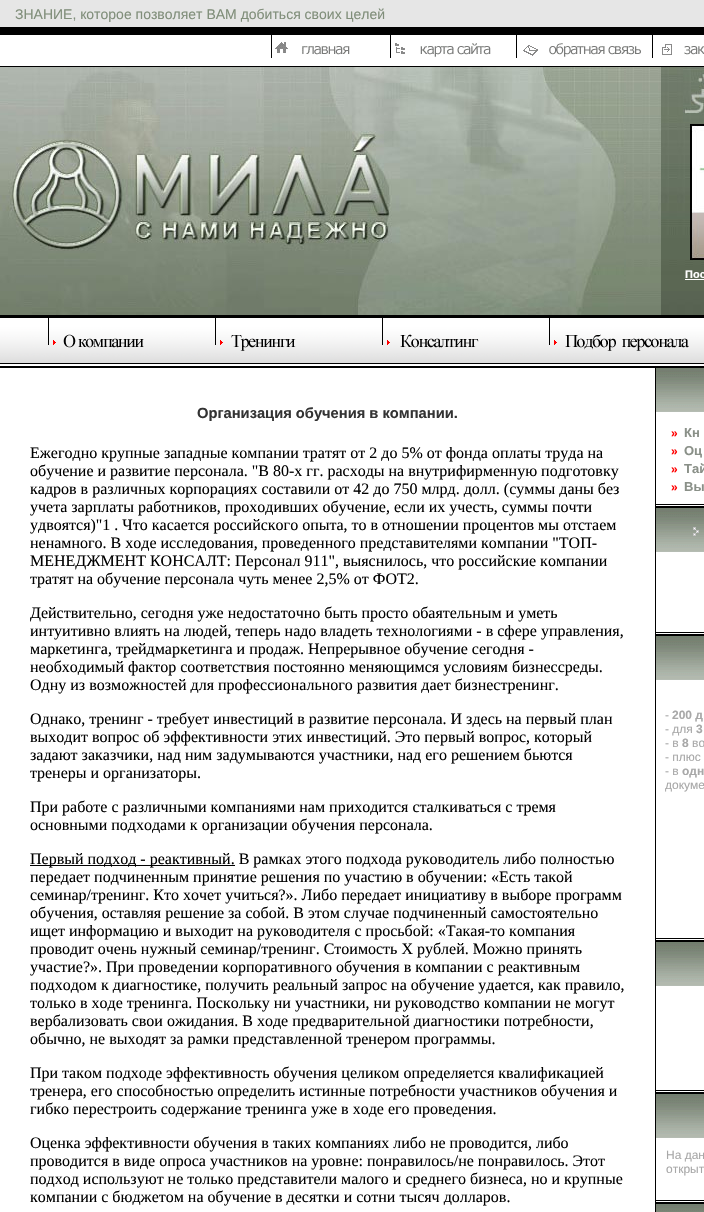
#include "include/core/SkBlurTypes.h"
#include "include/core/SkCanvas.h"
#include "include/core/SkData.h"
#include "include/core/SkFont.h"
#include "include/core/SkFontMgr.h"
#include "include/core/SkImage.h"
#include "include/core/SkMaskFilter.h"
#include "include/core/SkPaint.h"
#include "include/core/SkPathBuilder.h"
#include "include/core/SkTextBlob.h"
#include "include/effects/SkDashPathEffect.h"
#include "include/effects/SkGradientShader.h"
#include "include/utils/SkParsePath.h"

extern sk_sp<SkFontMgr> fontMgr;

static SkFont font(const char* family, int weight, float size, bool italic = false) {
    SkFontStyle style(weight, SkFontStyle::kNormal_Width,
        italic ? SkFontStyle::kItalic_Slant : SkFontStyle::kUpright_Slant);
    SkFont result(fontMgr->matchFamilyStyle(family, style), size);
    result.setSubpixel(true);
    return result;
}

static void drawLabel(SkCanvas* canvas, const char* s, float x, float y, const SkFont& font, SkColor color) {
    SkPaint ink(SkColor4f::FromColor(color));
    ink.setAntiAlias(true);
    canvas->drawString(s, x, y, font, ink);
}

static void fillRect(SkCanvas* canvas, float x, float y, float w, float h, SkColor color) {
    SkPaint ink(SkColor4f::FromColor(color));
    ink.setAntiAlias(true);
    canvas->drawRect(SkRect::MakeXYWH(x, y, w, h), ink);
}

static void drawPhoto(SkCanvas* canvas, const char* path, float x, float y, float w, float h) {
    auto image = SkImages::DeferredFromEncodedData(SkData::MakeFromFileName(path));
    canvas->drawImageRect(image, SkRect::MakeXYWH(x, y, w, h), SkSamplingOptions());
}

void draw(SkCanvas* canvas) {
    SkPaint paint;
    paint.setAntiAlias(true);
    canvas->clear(0xFFFFFFFF);
    fillRect(canvas, 0, 0, 704, 27, 0xFFE6E6E6);
    SkFont font1 = font("Liberation Sans", 400, 14);
    drawLabel(canvas, "ЗНАНИЕ, которое позволяет ВАМ добиться своих целей", 15, 19, font1, 0xFF808E7A);
    fillRect(canvas, 0, 27, 704, 8, 0xFF000000);
    fillRect(canvas, 0, 66, 704, 1, 0xFF000000);
    drawPhoto(canvas, "assets/img1.png", 271, 35, 79, 23);
    drawPhoto(canvas, "assets/img2.png", 390, 35, 101, 23);
    drawPhoto(canvas, "assets/img3.png", 516, 35, 126, 23);
    drawPhoto(canvas, "assets/img4.png", 652, 35, 52, 23);
    drawPhoto(canvas, "assets/img5.png", 0, 67, 626, 248);
    drawPhoto(canvas, "assets/img6.png", 626, 67, 35, 248);
    drawPhoto(canvas, "assets/img7.png", 661, 67, 43, 248);
    drawPhoto(canvas, "assets/img8.png", 683, 67, 21, 55);
    paint.setStroke(true);
    paint.setStrokeWidth(1);
    paint.setColor(0xFF000000);
    canvas->drawRect(SkRect::MakeXYWH(690.5f, 124.5f, 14, 135), paint);
    drawPhoto(canvas, "assets/img9.png", 691, 125, 13, 134);
    SkFont font2 = font("Liberation Sans", 700, 11);
    drawLabel(canvas, "Пос", 685, 278, font2, 0xFFFFFFFF);
    fillRect(canvas, 685, 279, 19, 1, 0xFFFFFFFF);
    drawPhoto(canvas, "assets/img10.png", 0, 315, 215, 49);
    drawPhoto(canvas, "assets/img11.png", 215, 315, 166, 49);
    drawPhoto(canvas, "assets/img12.png", 381, 315, 168, 49);
    drawPhoto(canvas, "assets/img13.png", 549, 315, 155, 49);
    fillRect(canvas, 0, 366, 704, 2, 0xFF000000);
    fillRect(canvas, 655, 366, 1, 846, 0xFF000000);
    SkFont font3 = font("Liberation Sans", 700, 14.7f);
    drawLabel(canvas, "Организация обучения в компании.", 197, 418, font3, 0xFF333333);
    SkFont font4 = font("Liberation Serif", 400, 16);
    drawLabel(canvas, "Ежегодно крупные западные компании тратят от 2 до 5% от фонда оплаты труда на", 30, 458, font4, 0xFF000000);
    drawLabel(canvas, "обучение и развитие персонала. \"В 80-х гг. расходы на внутрифирменную подготовку", 30, 476, font4, 0xFF000000);
    drawLabel(canvas, "кадров в различных корпорациях составили от 42 до 750 млрд. долл. (суммы даны без", 30, 494, font4, 0xFF000000);
    drawLabel(canvas, "учета зарплаты работников, проходивших обучение, если их учесть, суммы почти", 30, 512, font4, 0xFF000000);
    drawLabel(canvas, "удвоятся)\"1 . Что касается российского опыта, то в отношении процентов мы отстаем", 30, 530, font4, 0xFF000000);
    drawLabel(canvas, "ненамного. В ходе исследования, проведенного представителями компании \"ТОП-", 30, 548, font4, 0xFF000000);
    drawLabel(canvas, "МЕНЕДЖМЕНТ КОНСАЛТ: Персонал 911\", выяснилось, что российские компании", 30, 566, font4, 0xFF000000);
    drawLabel(canvas, "тратят на обучение персонала чуть менее 2,5% от ФОТ2.", 30, 584, font4, 0xFF000000);
    drawLabel(canvas, "Действительно, сегодня уже недостаточно быть просто обаятельным и уметь", 30, 618, font4, 0xFF000000);
    drawLabel(canvas, "интуитивно влиять на людей, теперь надо владеть технологиями - в сфере управления,", 30, 636, font4, 0xFF000000);
    drawLabel(canvas, "маркетинга, трейдмаркетинга и продаж. Непрерывное обучение сегодня -", 30, 654, font4, 0xFF000000);
    drawLabel(canvas, "необходимый фактор соответствия постоянно меняющимся условиям бизнессреды.", 30, 672, font4, 0xFF000000);
    drawLabel(canvas, "Одну из возможностей для профессионального развития дает бизнестренинг.", 30, 690, font4, 0xFF000000);
    drawLabel(canvas, "Однако, тренинг - требует инвестиций в развитие персонала. И здесь на первый план", 30, 724, font4, 0xFF000000);
    drawLabel(canvas, "выходит вопрос об эффективности этих инвестиций. Это первый вопрос, который", 30, 742, font4, 0xFF000000);
    drawLabel(canvas, "задают заказчики, над ним задумываются участники, над его решением бьются", 30, 760, font4, 0xFF000000);
    drawLabel(canvas, "тренеры и организаторы.", 30, 778, font4, 0xFF000000);
    drawLabel(canvas, "При работе с различными компаниями нам приходится сталкиваться с тремя", 30, 812, font4, 0xFF000000);
    drawLabel(canvas, "основными подходами к организации обучения персонала.", 30, 830, font4, 0xFF000000);
    fillRect(canvas, 30, 865, 205, 1, 0xFF000000);
    drawLabel(canvas, "Первый подход - реактивный. В рамках этого подхода руководитель либо полностью", 30, 864, font4, 0xFF000000);
    drawLabel(canvas, "передает подчиненным принятие решения по участию в обучении: «Есть такой", 30, 882, font4, 0xFF000000);
    drawLabel(canvas, "семинар/тренинг. Кто хочет учиться?». Либо передает инициативу в выборе программ", 30, 900, font4, 0xFF000000);
    drawLabel(canvas, "обучения, оставляя решение за собой. В этом случае подчиненный самостоятельно", 30, 918, font4, 0xFF000000);
    drawLabel(canvas, "ищет информацию и выходит на руководителя с просьбой: «Такая-то компания", 30, 936, font4, 0xFF000000);
    drawLabel(canvas, "проводит очень нужный семинар/тренинг. Стоимость X рублей. Можно принять", 30, 954, font4, 0xFF000000);
    drawLabel(canvas, "участие?». При проведении корпоративного обучения в компании с реактивным", 30, 972, font4, 0xFF000000);
    drawLabel(canvas, "подходом к диагностике, получить реальный запрос на обучение удается, как правило,", 30, 990, font4, 0xFF000000);
    drawLabel(canvas, "только в ходе тренинга. Поскольку ни участники, ни руководство компании не могут", 30, 1008, font4, 0xFF000000);
    drawLabel(canvas, "вербализовать свои ожидания. В ходе предварительной диагностики потребности,", 30, 1026, font4, 0xFF000000);
    drawLabel(canvas, "обычно, не выходят за рамки представленной тренером программы.", 30, 1044, font4, 0xFF000000);
    drawLabel(canvas, "При таком подходе эффективность обучения целиком определяется квалификацией", 30, 1078, font4, 0xFF000000);
    drawLabel(canvas, "тренера, его способностью определить истинные потребности участников обучения и", 30, 1096, font4, 0xFF000000);
    drawLabel(canvas, "гибко перестроить содержание тренинга уже в ходе его проведения.", 30, 1114, font4, 0xFF000000);
    drawLabel(canvas, "Оценка эффективности обучения в таких компаниях либо не проводится, либо", 30, 1148, font4, 0xFF000000);
    drawLabel(canvas, "проводится в виде опроса участников на уровне: понравилось/не понравилось. Этот", 30, 1166, font4, 0xFF000000);
    drawLabel(canvas, "подход используют не только представители малого и среднего бизнеса, но и крупные", 30, 1184, font4, 0xFF000000);
    drawLabel(canvas, "компании с бюджетом на обучение в десятки и сотни тысяч долларов.", 30, 1202, font4, 0xFF000000);
    fillRect(canvas, 656, 504, 48, 1, 0xFF000000);
    drawPhoto(canvas, "assets/img14.png", 656, 368, 48, 44);
    SkFont font5 = font("Liberation Sans", 700, 12);
    drawLabel(canvas, "»", 671, 437, font5, 0xFFFF0000);
    SkFont font6 = font("Liberation Sans", 700, 13);
    drawLabel(canvas, "Кн", 684, 437, font6, 0xFF8A9088);
    drawLabel(canvas, "»", 671, 455, font5, 0xFFFF0000);
    drawLabel(canvas, "Оц", 684, 455, font6, 0xFF8A9088);
    drawLabel(canvas, "»", 671, 473, font5, 0xFFFF0000);
    drawLabel(canvas, "Тай", 684, 473, font6, 0xFF8A9088);
    drawLabel(canvas, "»", 671, 491, font5, 0xFFFF0000);
    drawLabel(canvas, "Вы", 684, 491, font6, 0xFF8A9088);
    fillRect(canvas, 656, 506, 48, 2, 0xFF000000);
    fillRect(canvas, 656, 632, 48, 1, 0xFF000000);
    drawPhoto(canvas, "assets/img14.png", 656, 508, 48, 44);
    drawPhoto(canvas, "assets/img15.png", 693, 527, 6, 9);
    fillRect(canvas, 656, 634, 48, 2, 0xFF000000);
    fillRect(canvas, 656, 938, 48, 1, 0xFF000000);
    drawPhoto(canvas, "assets/img14.png", 656, 636, 48, 44);
    SkFont font7 = font("Liberation Sans", 400, 12);
    drawLabel(canvas, "-", 665, 719, font7, 0xFFA8A8A8);
    drawLabel(canvas, "200 д", 672, 719, font5, 0xFFA8A8A8);
    drawLabel(canvas, "- для", 665, 733, font7, 0xFFA8A8A8);
    drawLabel(canvas, "3", 696, 733, font5, 0xFFA8A8A8);
    drawLabel(canvas, "- в", 665, 747, font7, 0xFFA8A8A8);
    drawLabel(canvas, "8", 682, 747, font5, 0xFFA8A8A8);
    drawLabel(canvas, "во", 692, 747, font7, 0xFFA8A8A8);
    drawLabel(canvas, "- плюс", 665, 761, font7, 0xFFA8A8A8);
    drawLabel(canvas, "- в", 665, 775, font7, 0xFFA8A8A8);
    drawLabel(canvas, "одн", 682, 775, font5, 0xFFA8A8A8);
    drawLabel(canvas, "докуме", 665, 789, font7, 0xFFA8A8A8);
    fillRect(canvas, 656, 940, 48, 2, 0xFF000000);
    fillRect(canvas, 656, 1090, 48, 1, 0xFF000000);
    drawPhoto(canvas, "assets/img14.png", 656, 942, 48, 44);
    fillRect(canvas, 656, 1092, 48, 2, 0xFF000000);
    fillRect(canvas, 656, 1200, 48, 1, 0xFF000000);
    drawPhoto(canvas, "assets/img14.png", 656, 1094, 48, 44);
    drawLabel(canvas, "На дан", 666, 1159, font7, 0xFFA8A8A8);
    drawLabel(canvas, "открыт", 666, 1173, font7, 0xFFA8A8A8);
    fillRect(canvas, 656, 1202, 48, 2, 0xFF000000);
    drawPhoto(canvas, "assets/img16.png", 656, 1204, 48, 8);
}
